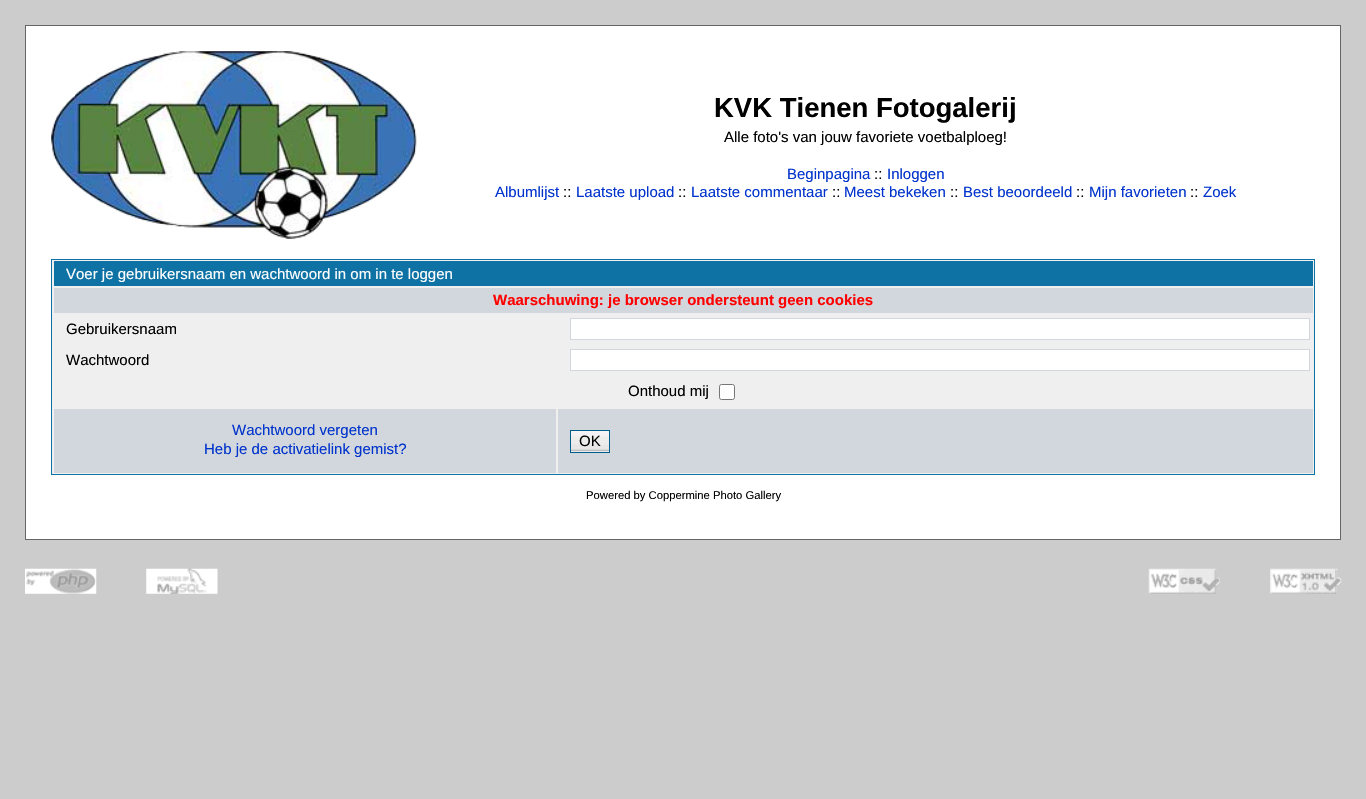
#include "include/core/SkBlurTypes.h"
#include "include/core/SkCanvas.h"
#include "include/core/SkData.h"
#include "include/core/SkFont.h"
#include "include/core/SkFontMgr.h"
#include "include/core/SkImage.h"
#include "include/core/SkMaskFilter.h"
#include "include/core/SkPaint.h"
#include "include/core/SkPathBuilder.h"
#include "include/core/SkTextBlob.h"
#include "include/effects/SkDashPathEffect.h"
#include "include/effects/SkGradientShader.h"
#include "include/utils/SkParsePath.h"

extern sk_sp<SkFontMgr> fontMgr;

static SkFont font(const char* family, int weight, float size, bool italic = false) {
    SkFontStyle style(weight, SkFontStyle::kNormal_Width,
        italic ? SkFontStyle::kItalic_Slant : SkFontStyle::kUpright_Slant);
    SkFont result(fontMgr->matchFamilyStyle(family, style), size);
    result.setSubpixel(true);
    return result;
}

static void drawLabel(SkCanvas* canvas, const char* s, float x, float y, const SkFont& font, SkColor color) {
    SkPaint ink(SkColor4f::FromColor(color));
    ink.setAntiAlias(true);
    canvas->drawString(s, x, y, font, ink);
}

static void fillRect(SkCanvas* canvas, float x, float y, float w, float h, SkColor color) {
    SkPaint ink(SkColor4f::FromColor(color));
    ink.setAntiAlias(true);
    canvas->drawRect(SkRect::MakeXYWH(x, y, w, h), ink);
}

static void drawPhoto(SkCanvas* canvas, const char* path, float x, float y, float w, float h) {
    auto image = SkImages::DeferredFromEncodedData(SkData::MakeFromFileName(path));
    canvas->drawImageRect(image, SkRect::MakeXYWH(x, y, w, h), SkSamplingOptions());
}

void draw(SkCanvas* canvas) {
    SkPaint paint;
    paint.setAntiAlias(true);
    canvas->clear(0xFFCCCCCC);
    paint.setColor(0xFFFFFFFF);
    canvas->drawRect(SkRect::MakeXYWH(25.5f, 25.5f, 1315, 514), paint);
    paint.setStroke(true);
    paint.setStrokeWidth(1);
    paint.setColor(0xFF666666);
    canvas->drawRect(SkRect::MakeXYWH(25.5f, 25.5f, 1315, 514), paint);
    drawPhoto(canvas, "assets/img1.png", 51, 51, 366, 188);
    SkFont font1 = font("Liberation Sans", 700, 27.5f);
    drawLabel(canvas, "KVK Tienen Fotogalerij", 714, 117, font1, 0xFF000000);
    SkFont font2 = font("Liberation Sans", 400, 15);
    drawLabel(canvas, "Alle foto's van jouw favoriete voetbalploeg!", 724, 142, font2, 0xFF000000);
    drawLabel(canvas, "Beginpagina", 787, 179, font2, 0xFF0033CC);
    drawLabel(canvas, "::", 874, 179, font2, 0xFF000000);
    drawLabel(canvas, "Inloggen", 887, 179, font2, 0xFF0033CC);
    drawLabel(canvas, "Albumlijst", 495, 197, font2, 0xFF0033CC);
    drawLabel(canvas, "::", 563, 197, font2, 0xFF000000);
    drawLabel(canvas, "Laatste upload", 576, 197, font2, 0xFF0033CC);
    drawLabel(canvas, "::", 678, 197, font2, 0xFF000000);
    drawLabel(canvas, "Laatste commentaar", 691, 197, font2, 0xFF0033CC);
    drawLabel(canvas, "::", 832, 197, font2, 0xFF000000);
    drawLabel(canvas, "Meest bekeken", 844, 197, font2, 0xFF0033CC);
    drawLabel(canvas, "::", 950, 197, font2, 0xFF000000);
    drawLabel(canvas, "Best beoordeeld", 963, 197, font2, 0xFF0033CC);
    drawLabel(canvas, "::", 1076, 197, font2, 0xFF000000);
    drawLabel(canvas, "Mijn favorieten", 1089, 197, font2, 0xFF0033CC);
    drawLabel(canvas, "::", 1190, 197, font2, 0xFF000000);
    drawLabel(canvas, "Zoek", 1203, 197, font2, 0xFF0033CC);
    paint.setStroke(false);
    paint.setColor(0xFFEFEFEF);
    canvas->drawRect(SkRect::MakeXYWH(51.5f, 259.5f, 1263, 215), paint);
    paint.setStroke(true);
    paint.setColor(0xFF0E72A4);
    canvas->drawRect(SkRect::MakeXYWH(51.5f, 259.5f, 1263, 215), paint);
    fillRect(canvas, 54, 261, 1259, 25, 0xFF0E72A4);
    drawLabel(canvas, "Voer je gebruikersnaam en wachtwoord in om in te loggen", 66, 279, font2, 0xFFFFFFFF);
    fillRect(canvas, 54, 288, 1259, 25, 0xFFD1D7DC);
    SkFont font3 = font("Liberation Sans", 700, 15);
    drawLabel(canvas, "Waarschuwing: je browser ondersteunt geen cookies", 493, 305, font3, 0xFFFF0000);
    drawLabel(canvas, "Gebruikersnaam", 66, 334, font2, 0xFF000000);
    paint.setStroke(false);
    paint.setColor(0xFFFFFFFF);
    canvas->drawRect(SkRect::MakeXYWH(570.5f, 318.5f, 739, 21), paint);
    paint.setStroke(true);
    paint.setColor(0xFFD1D7DC);
    canvas->drawRect(SkRect::MakeXYWH(570.5f, 318.5f, 739, 21), paint);
    drawLabel(canvas, "Wachtwoord", 66, 365, font2, 0xFF000000);
    paint.setStroke(false);
    paint.setColor(0xFFFFFFFF);
    canvas->drawRect(SkRect::MakeXYWH(570.5f, 349.5f, 739, 21), paint);
    paint.setStroke(true);
    paint.setColor(0xFFD1D7DC);
    canvas->drawRect(SkRect::MakeXYWH(570.5f, 349.5f, 739, 21), paint);
    drawLabel(canvas, "Onthoud mij", 628, 396, font2, 0xFF000000);
    paint.setStroke(false);
    paint.setColor(0xFFFFFFFF);
    canvas->drawRoundRect(SkRect::MakeXYWH(719.5f, 384.5f, 15, 15), 2, 2, paint);
    paint.setStroke(true);
    paint.setColor(0xFF767676);
    canvas->drawRoundRect(SkRect::MakeXYWH(719.5f, 384.5f, 15, 15), 2, 2, paint);
    fillRect(canvas, 54, 409, 502, 64, 0xFFD1D7DC);
    drawLabel(canvas, "Wachtwoord vergeten", 232, 435, font2, 0xFF0033CC);
    drawLabel(canvas, "Heb je de activatielink gemist?", 204, 454, font2, 0xFF0033CC);
    fillRect(canvas, 558, 409, 755, 64, 0xFFD1D7DC);
    drawPhoto(canvas, "assets/img2.png", 571, 431, 38, 21);
    paint.setColor(0xFF005D8C);
    canvas->drawRect(SkRect::MakeXYWH(570.5f, 430.5f, 39, 22), paint);
    drawLabel(canvas, "OK", 579, 446, font2, 0xFF000000);
    SkFont font4 = font("Liberation Sans", 400, 11.25f);
    drawLabel(canvas, "Powered by Coppermine Photo Gallery", 586, 499, font4, 0xFF000000);
    drawPhoto(canvas, "assets/img3.png", 25, 568, 72, 26);
    drawPhoto(canvas, "assets/img4.png", 146, 568, 72, 26);
    drawPhoto(canvas, "assets/img5.png", 1148, 568, 72, 26);
    drawPhoto(canvas, "assets/img6.png", 1270, 568, 72, 26);
}
